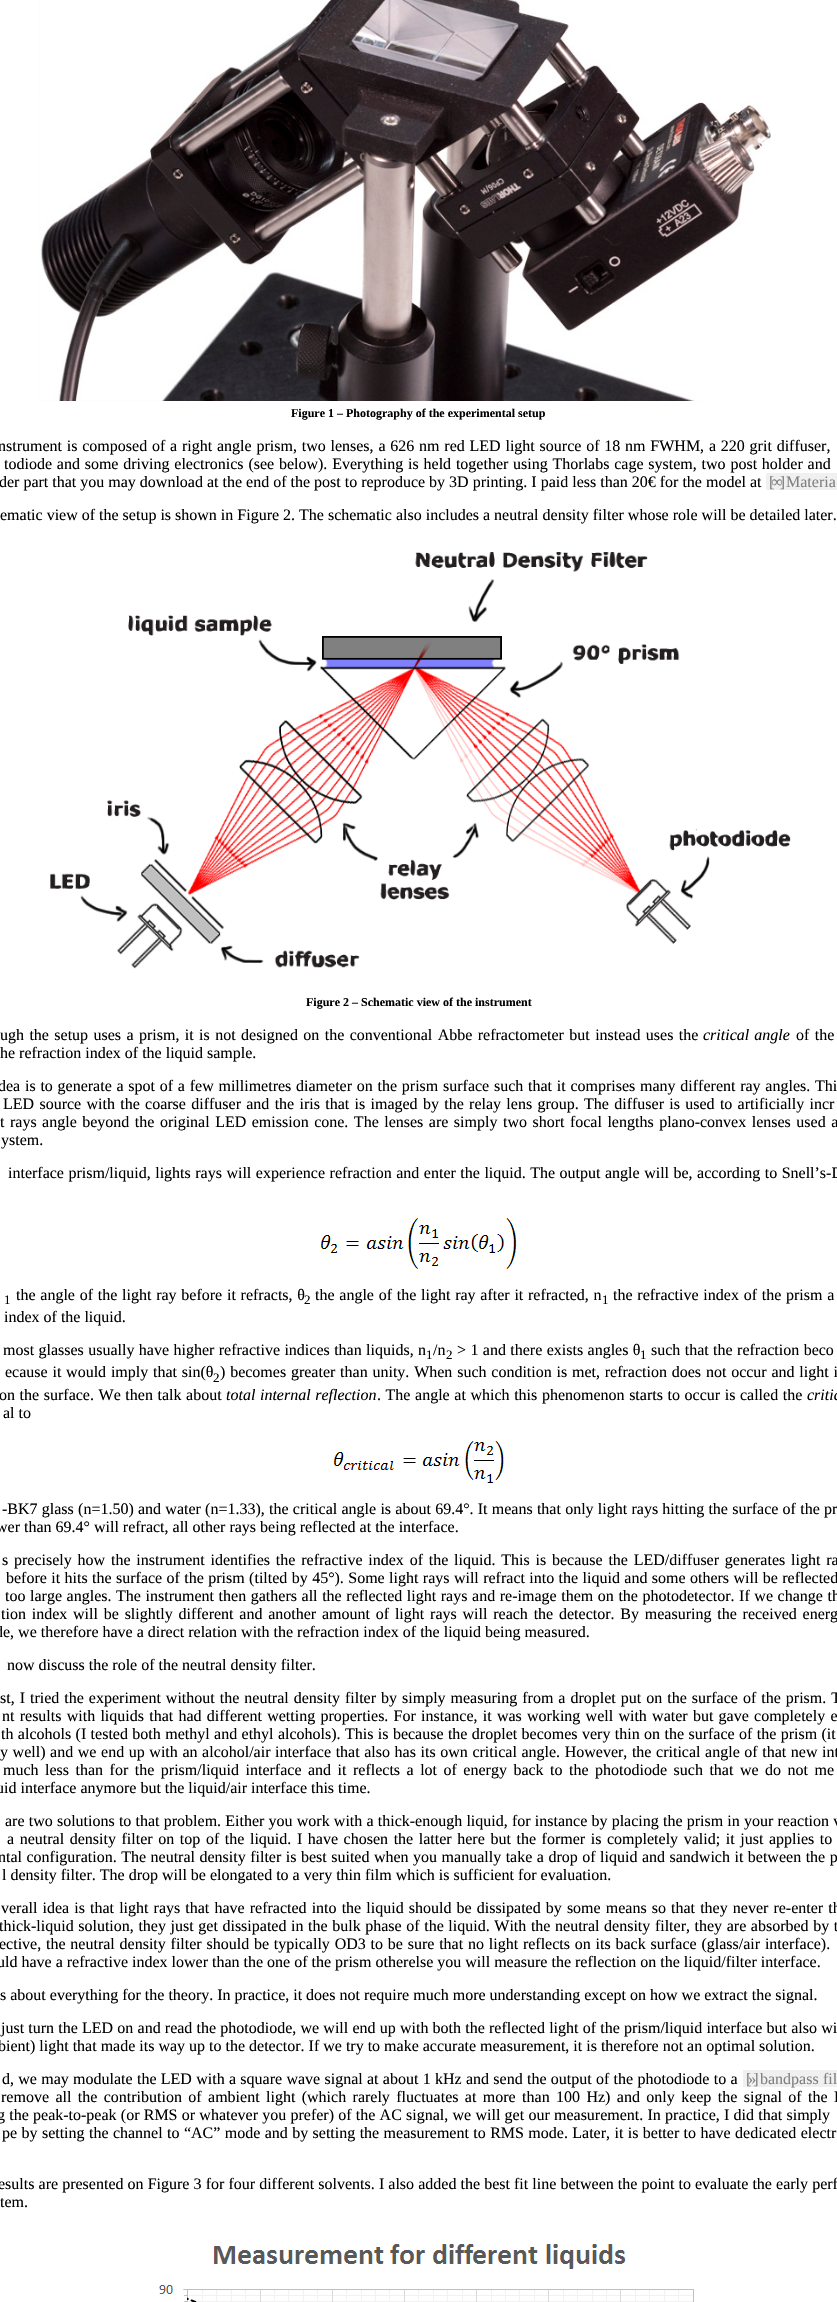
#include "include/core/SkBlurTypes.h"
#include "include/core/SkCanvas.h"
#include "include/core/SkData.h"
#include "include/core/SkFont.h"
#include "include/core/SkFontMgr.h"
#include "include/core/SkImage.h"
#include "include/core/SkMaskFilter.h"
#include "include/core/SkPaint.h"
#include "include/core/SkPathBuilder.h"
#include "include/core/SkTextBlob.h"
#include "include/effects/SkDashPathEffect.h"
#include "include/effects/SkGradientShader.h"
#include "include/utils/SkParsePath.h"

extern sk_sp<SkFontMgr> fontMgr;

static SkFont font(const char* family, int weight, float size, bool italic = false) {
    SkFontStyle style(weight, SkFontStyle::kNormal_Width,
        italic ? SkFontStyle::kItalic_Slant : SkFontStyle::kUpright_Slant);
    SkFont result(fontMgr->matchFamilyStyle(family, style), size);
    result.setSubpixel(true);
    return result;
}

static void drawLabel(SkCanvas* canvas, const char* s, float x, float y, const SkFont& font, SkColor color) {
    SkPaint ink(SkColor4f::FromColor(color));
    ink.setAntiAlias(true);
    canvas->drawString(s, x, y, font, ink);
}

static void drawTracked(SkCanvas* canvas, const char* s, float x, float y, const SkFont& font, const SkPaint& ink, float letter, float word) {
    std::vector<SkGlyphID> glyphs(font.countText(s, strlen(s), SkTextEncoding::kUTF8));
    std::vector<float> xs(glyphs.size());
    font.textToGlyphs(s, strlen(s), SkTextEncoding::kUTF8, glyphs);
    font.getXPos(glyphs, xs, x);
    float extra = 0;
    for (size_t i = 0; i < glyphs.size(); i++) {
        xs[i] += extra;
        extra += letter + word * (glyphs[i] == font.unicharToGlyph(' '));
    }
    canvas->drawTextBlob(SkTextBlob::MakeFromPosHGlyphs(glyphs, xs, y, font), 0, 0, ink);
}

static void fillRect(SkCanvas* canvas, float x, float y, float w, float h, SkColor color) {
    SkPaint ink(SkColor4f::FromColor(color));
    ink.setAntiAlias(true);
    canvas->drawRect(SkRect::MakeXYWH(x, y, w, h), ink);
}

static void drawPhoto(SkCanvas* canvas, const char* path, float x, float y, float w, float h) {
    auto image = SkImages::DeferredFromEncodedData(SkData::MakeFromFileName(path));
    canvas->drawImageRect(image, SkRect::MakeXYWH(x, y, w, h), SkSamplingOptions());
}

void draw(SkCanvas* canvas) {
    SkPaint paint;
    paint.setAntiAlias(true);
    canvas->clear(0xFFFFFFFF);
    drawPhoto(canvas, "assets/img1.png", 39, 0, 732, 401);
    SkFont font1 = font("Liberation Serif", 700, 12);
    drawLabel(canvas, "Figure 1 – Photography of the experimental setup", 291, 417, font1, 0xFF000000);
    SkFont font2 = font("Liberation Serif", 400, 16);
    paint.setColor(0xFF000000);
    drawTracked(canvas, "nstrument is composed of a right angle prism, two lenses, a 626 nm red LED light source of 18 nm FWHM, a 220 grit diffuser,", -2, 451, font2, paint, 0, 0.8f);
    drawTracked(canvas, "todiode and some driving electronics (see below). Everything is held together using Thorlabs cage system, two post holder and", 4, 469, font2, paint, 0, 0.8f);
    drawLabel(canvas, "der part that you may download at the end of the post to reproduce by 3D printing. I paid less than 20€ for the model at", -1, 487, font2, 0xFF000000);
    fillRect(canvas, 766, 473, 71, 17, 0xFFF0F0F0);
    paint.setColor(0xFF808080);
    drawTracked(canvas, "[∞]", 769, 487, font2, paint, -3, 0);
    drawLabel(canvas, "Materia", 786, 487, font2, 0xFF808080);
    drawLabel(canvas, "ematic view of the setup is shown in Figure 2. The schematic also includes a neutral density filter whose role will be detailed later.", 0, 520, font2, 0xFF000000);
    drawPhoto(canvas, "assets/img2.png", 50, 552, 741, 417);
    drawLabel(canvas, "Figure 2 – Schematic view of the instrument", 306, 1006, font1, 0xFF000000);
    paint.setColor(0xFF000000);
    drawTracked(canvas, "ugh the setup uses a prism, it is not designed on the conventional Abbe refractometer but instead uses the", 0, 1040, font2, paint, 0, 1.4f);
    SkFont font3 = font("Liberation Serif", 400, 16, true);
    drawTracked(canvas, "critical angle", 703, 1040, font3, paint, 0, 1);
    drawTracked(canvas, "of the", 796, 1040, font2, paint, 0, 1.4f);
    drawLabel(canvas, "he refraction index of the liquid sample.", 0, 1058, font2, 0xFF000000);
    drawTracked(canvas, "dea is to generate a spot of a few millimetres diameter on the prism surface such that it comprises many different ray angles. Thi", -2, 1091, font2, paint, 0, 0.75f);
    drawTracked(canvas, "LED source with the coarse diffuser and the iris that is imaged by the relay lens group. The diffuser is used to artificially incr", 3, 1109, font2, paint, 0, 1.3f);
    drawTracked(canvas, "t rays angle beyond the original LED emission cone. The lenses are simply two short focal lengths plano-convex lenses used a", 0, 1127, font2, paint, 0, 1.5f);
    drawLabel(canvas, "ystem.", 1, 1145, font2, 0xFF000000);
    drawTracked(canvas, "interface prism/liquid, lights rays will experience refraction and enter the liquid. The output angle will be, according to Snell’s-D", 8, 1178, font2, paint, 0, 0.5f);
    drawPhoto(canvas, "assets/img3.png", 320, 1218, 197, 51);
    SkFont font4 = font("Liberation Serif", 400, 13);
    drawLabel(canvas, "1", 4, 1304, font4, 0xFF000000);
    drawTracked(canvas, "the angle of the light ray before it refracts, θ", 16, 1300, font2, paint, 0, 0.75f);
    drawLabel(canvas, "2", 304, 1304, font4, 0xFF000000);
    drawTracked(canvas, "the angle of the light ray after it refracted, n", 315, 1300, font2, paint, 0, 0.75f);
    drawLabel(canvas, "1", 602, 1304, font4, 0xFF000000);
    drawTracked(canvas, "the refractive index of the prism a", 613, 1300, font2, paint, 0, 0.75f);
    drawLabel(canvas, "index of the liquid.", 4, 1322, font2, 0xFF000000);
    drawTracked(canvas, "most glasses usually have higher refractive indices than liquids, n", 3, 1355, font2, paint, 0, 0.4f);
    drawLabel(canvas, "1", 426, 1359, font4, 0xFF000000);
    drawLabel(canvas, "/n", 433, 1355, font2, 0xFF000000);
    drawLabel(canvas, "2", 446, 1359, font4, 0xFF000000);
    drawTracked(canvas, "> 1 and there exists angles θ", 457, 1355, font2, paint, 0, 0.4f);
    drawLabel(canvas, "1", 640, 1359, font4, 0xFF000000);
    drawTracked(canvas, "such that the refraction beco", 651, 1355, font2, paint, 0, 0.4f);
    drawTracked(canvas, "ecause it would imply that sin(θ", 5, 1377, font2, paint, 0, 0.8f);
    drawLabel(canvas, "2", 213, 1382, font4, 0xFF000000);
    drawTracked(canvas, ") becomes greater than unity. When such condition is met, refraction does not occur and light i", 220, 1377, font2, paint, 0, 0.8f);
    drawTracked(canvas, "on the surface. We then talk about", -1, 1400, font2, paint, 0, 0.6f);
    drawTracked(canvas, "total internal reflection", 226, 1400, font3, paint, 0, 0.6f);
    drawTracked(canvas, ". The angle at which this phenomenon starts to occur is called the", 377, 1400, font2, paint, 0, 0.6f);
    drawTracked(canvas, "critic", 807, 1400, font3, paint, 0, 1);
    drawLabel(canvas, "al to", 3, 1418, font2, 0xFF000000);
    drawPhoto(canvas, "assets/img4.png", 333, 1441, 171, 42);
    drawTracked(canvas, "-BK7 glass (n=1.50) and water (n=1.33), the critical angle is about 69.4°. It means that only light rays hitting the surface of the pr", 2, 1514, font2, paint, 0, 0.25f);
    drawLabel(canvas, "wer than 69.4° will refract, all other rays being reflected at the interface.", -4, 1532, font2, 0xFF000000);
    drawTracked(canvas, "s precisely how the instrument identifies the refractive index of the liquid. This is because the LED/diffuser generates light ra", 2, 1565, font2, paint, 0, 1.8f);
    drawTracked(canvas, "before it hits the surface of the prism (tilted by 45°). Some light rays will refract into the liquid and some others will be reflected", 6, 1583, font2, paint, 0, 0.4f);
    drawTracked(canvas, "too large angles. The instrument then gathers all the reflected light rays and re-image them on the photodetector. If we change th", 5, 1601, font2, paint, 0, 0.6f);
    drawTracked(canvas, "tion index will be slightly different and another amount of light rays will reach the detector. By measuring the received energ", 1, 1619, font2, paint, 0, 1.8f);
    drawLabel(canvas, "de, we therefore have a direct relation with the refraction index of the liquid being measured.", -5, 1637, font2, 0xFF000000);
    drawLabel(canvas, "now discuss the role of the neutral density filter.", 7, 1670, font2, 0xFF000000);
    drawTracked(canvas, "st, I tried the experiment without the neutral density filter by simply measuring from a droplet put on the surface of the prism. T", 0, 1703, font2, paint, 0, 1);
    drawTracked(canvas, "nt results with liquids that had different wetting properties. For instance, it was working well with water but gave completely e", 2, 1721, font2, paint, 0, 1.25f);
    drawTracked(canvas, "th alcohols (I tested both methyl and ethyl alcohols). This is because the droplet becomes very thin on the surface of the prism (it", 1, 1739, font2, paint, 0, 0.4f);
    drawTracked(canvas, "y well) and we end up with an alcohol/air interface that also has its own critical angle. However, the critical angle of that new int", 0, 1757, font2, paint, 0, 0.6f);
    drawTracked(canvas, "much less than for the prism/liquid interface and it reflects a lot of energy back to the photodiode such that we do not me", 3, 1775, font2, paint, 0, 2.5f);
    drawLabel(canvas, "uid interface anymore but the liquid/air interface this time.", -4, 1793, font2, 0xFF000000);
    drawTracked(canvas, "are two solutions to that problem. Either you work with a thick-enough liquid, for instance by placing the prism in your reaction v", 5, 1826, font2, paint, 0, 0.2f);
    drawTracked(canvas, "a neutral density filter on top of the liquid. I have chosen the latter here but the former is completely valid; it just applies to", 7, 1844, font2, paint, 0, 1.6f);
    drawTracked(canvas, "ntal configuration. The neutral density filter is best suited when you manually take a drop of liquid and sandwich it between the p", -2, 1862, font2, paint, 0, 0.5f);
    drawLabel(canvas, "l density filter. The drop will be elongated to a very thin film which is sufficient for evaluation.", 2, 1880, font2, 0xFF000000);
    drawTracked(canvas, "verall idea is that light rays that have refracted into the liquid should be dissipated by some means so that they never re-enter th", 1, 1913, font2, paint, 0, 1.1f);
    drawTracked(canvas, "thick-liquid solution, they just get dissipated in the bulk phase of the liquid. With the neutral density filter, they are absorbed by t", -1, 1931, font2, paint, 0, 0.6f);
    drawTracked(canvas, "ective, the neutral density filter should be typically OD3 to be sure that no light reflects on its back surface (glass/air interface).", -1, 1949, font2, paint, 0, 0.8f);
    drawLabel(canvas, "uld have a refractive index lower than the one of the prism otherelse you will measure the reflection on the liquid/filter interface.", -3, 1967, font2, 0xFF000000);
    drawLabel(canvas, "s about everything for the theory. In practice, it does not require much more understanding except on how we extract the signal.", 0, 2000, font2, 0xFF000000);
    drawTracked(canvas, "just turn the LED on and read the photodiode, we will end up with both the reflected light of the prism/liquid interface but also wi", 1, 2033, font2, paint, 0, 0.2f);
    drawLabel(canvas, "bient) light that made its way up to the detector. If we try to make accurate measurement, it is therefore not an optimal solution.", -2, 2051, font2, 0xFF000000);
    drawTracked(canvas, "d, we may modulate the LED with a square wave signal at about 1 kHz and send the output of the photodiode to a", 2, 2084, font2, paint, 0, 0.3f);
    fillRect(canvas, 743, 2070, 94, 17, 0xFFF0F0F0);
    paint.setColor(0xFF808080);
    drawTracked(canvas, "[»]", 746, 2084, font2, paint, -3, 0);
    drawTracked(canvas, "bandpass fil", 760, 2084, font2, paint, 0, 0.3f);
    paint.setColor(0xFF000000);
    drawTracked(canvas, "remove all the contribution of ambient light (which rarely fluctuates at more than 100 Hz) and only keep the signal of the L", 1, 2102, font2, paint, 0, 2.4f);
    drawTracked(canvas, "g the peak-to-peak (or RMS or whatever you prefer) of the AC signal, we will get our measurement. In practice, I did that simply", -3, 2120, font2, paint, 0, 0.25f);
    drawTracked(canvas, "pe by setting the channel to “AC” mode and by setting the measurement to RMS mode. Later, it is better to have dedicated electr", 2, 2138, font2, paint, 0, 0.4f);
    drawTracked(canvas, "esults are presented on Figure 3 for four different solvents. I also added the best fit line between the point to evaluate the early perf", -2, 2189, font2, paint, 0, 0.1f);
    drawLabel(canvas, "tem.", 0, 2207, font2, 0xFF000000);
    drawPhoto(canvas, "assets/img5.png", 159, 2244, 535, 58);
}
